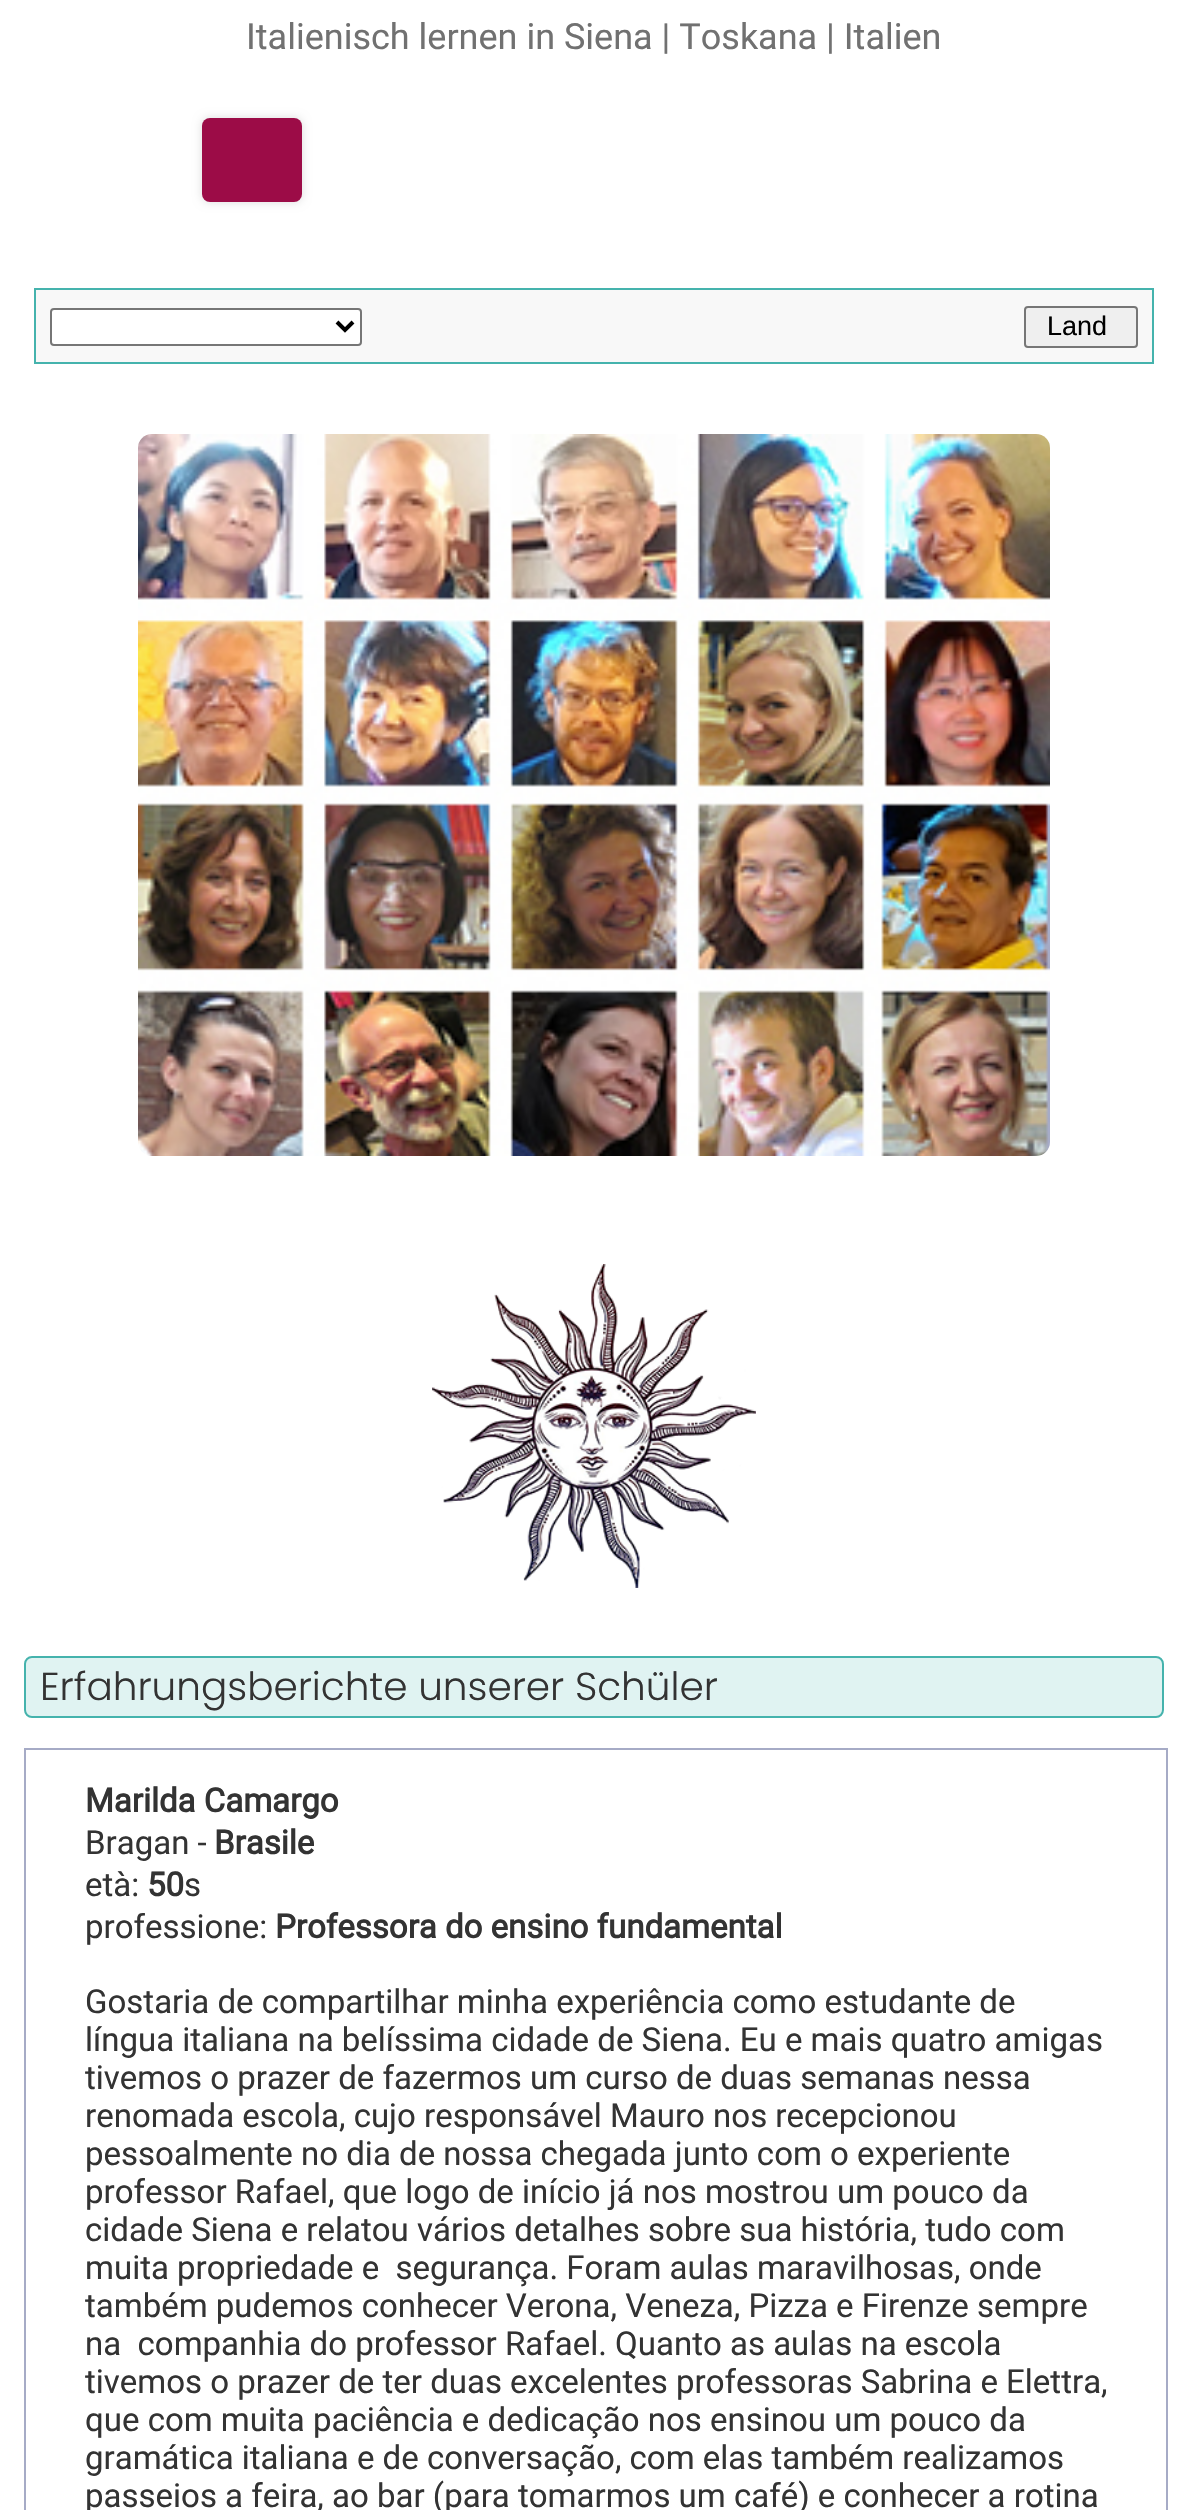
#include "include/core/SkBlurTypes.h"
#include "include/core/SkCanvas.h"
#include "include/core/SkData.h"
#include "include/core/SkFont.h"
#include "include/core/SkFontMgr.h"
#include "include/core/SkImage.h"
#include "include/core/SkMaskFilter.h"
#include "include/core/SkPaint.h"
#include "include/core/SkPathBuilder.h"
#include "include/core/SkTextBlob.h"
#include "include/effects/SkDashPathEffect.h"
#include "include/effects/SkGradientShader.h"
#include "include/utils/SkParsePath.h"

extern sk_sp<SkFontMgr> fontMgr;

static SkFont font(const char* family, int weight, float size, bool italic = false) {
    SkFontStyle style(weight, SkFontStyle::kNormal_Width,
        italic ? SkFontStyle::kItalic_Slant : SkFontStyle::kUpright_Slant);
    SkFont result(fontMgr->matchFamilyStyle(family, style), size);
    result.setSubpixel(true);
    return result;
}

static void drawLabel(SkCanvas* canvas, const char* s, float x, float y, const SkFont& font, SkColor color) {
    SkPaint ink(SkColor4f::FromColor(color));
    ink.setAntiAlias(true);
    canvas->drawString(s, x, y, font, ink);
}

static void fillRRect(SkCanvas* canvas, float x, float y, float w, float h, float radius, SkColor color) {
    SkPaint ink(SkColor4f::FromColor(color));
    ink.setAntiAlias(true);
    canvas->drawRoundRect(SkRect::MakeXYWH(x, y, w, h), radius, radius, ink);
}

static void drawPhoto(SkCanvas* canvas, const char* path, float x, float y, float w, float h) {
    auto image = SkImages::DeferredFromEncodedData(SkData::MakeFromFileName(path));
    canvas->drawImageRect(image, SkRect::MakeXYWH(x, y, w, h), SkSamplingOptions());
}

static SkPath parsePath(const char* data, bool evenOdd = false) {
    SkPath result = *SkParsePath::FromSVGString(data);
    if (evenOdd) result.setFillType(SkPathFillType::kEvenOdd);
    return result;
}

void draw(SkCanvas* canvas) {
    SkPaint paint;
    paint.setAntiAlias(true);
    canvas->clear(0xFFFFFFFF);
    SkFont font1 = font("Roboto", 400, 36);
    drawLabel(canvas, "Italienisch lernen in Siena | Toskana | Italien", 246, 49, font1, 0xFF717171);
    paint.setColor(0xFFDCDCDC);
    paint.setMaskFilter(SkMaskFilter::MakeBlur(kNormal_SkBlurStyle, 5));
    canvas->drawRoundRect(SkRect::MakeXYWH(202, 118, 100, 84), 8, 8, paint);
    paint.setMaskFilter(nullptr);
    fillRRect(canvas, 202, 118, 100, 84, 8, 0xFF9C0C47);
    paint.setColor(0xFFF8F8F8);
    canvas->drawRect(SkRect::MakeXYWH(35, 289, 1118, 74), paint);
    paint.setStroke(true);
    paint.setStrokeWidth(2);
    paint.setColor(0xFF45B3AD);
    canvas->drawRect(SkRect::MakeXYWH(35, 289, 1118, 74), paint);
    paint.setStroke(false);
    paint.setColor(0xFFFFFFFF);
    canvas->drawRoundRect(SkRect::MakeXYWH(51, 309, 310, 36), 3, 3, paint);
    paint.setStroke(true);
    paint.setColor(0xFF767676);
    canvas->drawRoundRect(SkRect::MakeXYWH(51, 309, 310, 36), 3, 3, paint);
    paint.setStrokeWidth(4);
    paint.setColor(0xFF000000);
    canvas->drawPath(parsePath("M337 322L345 330L353 322"), paint);
    paint.setStroke(false);
    paint.setColor(0xFFEFEFEF);
    canvas->drawRoundRect(SkRect::MakeXYWH(1025, 307, 112, 40), 3, 3, paint);
    paint.setStroke(true);
    paint.setStrokeWidth(2);
    paint.setColor(0xFF767676);
    canvas->drawRoundRect(SkRect::MakeXYWH(1025, 307, 112, 40), 3, 3, paint);
    SkFont font2 = font("Liberation Sans", 400, 27);
    drawLabel(canvas, "Land", 1047, 335, font2, 0xFF000000);
    drawPhoto(canvas, "assets/img1.png", 138, 434, 912, 722);
    drawPhoto(canvas, "assets/img2.png", 432, 1264, 324, 324);
    paint.setStroke(false);
    paint.setColor(0xFFE0F3F2);
    canvas->drawRoundRect(SkRect::MakeXYWH(25, 1657, 1138, 60), 7, 7, paint);
    paint.setStroke(true);
    paint.setColor(0xFF45B3AD);
    canvas->drawRoundRect(SkRect::MakeXYWH(25, 1657, 1138, 60), 7, 7, paint);
    SkFont font3 = font("Poppins", 300, 39);
    drawLabel(canvas, "Erfahrungsberichte unserer Schüler", 40, 1700, font3, 0xFF333333);
    paint.setColor(0xFFA6ABC6);
    canvas->drawRect(SkRect::MakeXYWH(25, 1749, 1142, 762), paint);
    SkFont font4 = font("Roboto", 700, 33);
    drawLabel(canvas, "Marilda Camargo", 85, 1812, font4, 0xFF333333);
    SkFont font5 = font("Roboto", 400, 33);
    drawLabel(canvas, "Bragan -", 85, 1854, font5, 0xFF333333);
    drawLabel(canvas, "Brasile", 214, 1854, font4, 0xFF333333);
    drawLabel(canvas, "età:", 85, 1896, font5, 0xFF333333);
    drawLabel(canvas, "50", 147, 1896, font4, 0xFF333333);
    drawLabel(canvas, "s", 184, 1896, font5, 0xFF333333);
    drawLabel(canvas, "professione:", 85, 1938, font5, 0xFF333333);
    drawLabel(canvas, "Professora do ensino fundamental", 275, 1938, font4, 0xFF333333);
    drawLabel(canvas, "Gostaria de compartilhar minha experiência como estudante de", 85, 2013, font5, 0xFF333333);
    drawLabel(canvas, "língua italiana na belíssima cidade de Siena. Eu e mais quatro amigas", 85, 2051, font5, 0xFF333333);
    drawLabel(canvas, "tivemos o prazer de fazermos um curso de duas semanas nessa", 85, 2089, font5, 0xFF333333);
    drawLabel(canvas, "renomada escola, cujo responsável Mauro nos recepcionou", 85, 2127, font5, 0xFF333333);
    drawLabel(canvas, "pessoalmente no dia de nossa chegada junto com o experiente", 85, 2165, font5, 0xFF333333);
    drawLabel(canvas, "professor Rafael, que logo de início já nos mostrou um pouco da", 85, 2203, font5, 0xFF333333);
    drawLabel(canvas, "cidade Siena e relatou vários detalhes sobre sua história, tudo com", 85, 2241, font5, 0xFF333333);
    drawLabel(canvas, "muita propriedade e  segurança. Foram aulas maravilhosas, onde", 85, 2279, font5, 0xFF333333);
    drawLabel(canvas, "também pudemos conhecer Verona, Veneza, Pizza e Firenze sempre", 85, 2317, font5, 0xFF333333);
    drawLabel(canvas, "na  companhia do professor Rafael. Quanto as aulas na escola", 85, 2355, font5, 0xFF333333);
    drawLabel(canvas, "tivemos o prazer de ter duas excelentes professoras Sabrina e Elettra,", 85, 2393, font5, 0xFF333333);
    drawLabel(canvas, "que com muita paciência e dedicação nos ensinou um pouco da", 85, 2431, font5, 0xFF333333);
    drawLabel(canvas, "gramática italiana e de conversação, com elas também realizamos", 85, 2469, font5, 0xFF333333);
    drawLabel(canvas, "passeios a feira, ao bar (para tomarmos um café) e conhecer a rotina", 85, 2507, font5, 0xFF333333);
}
